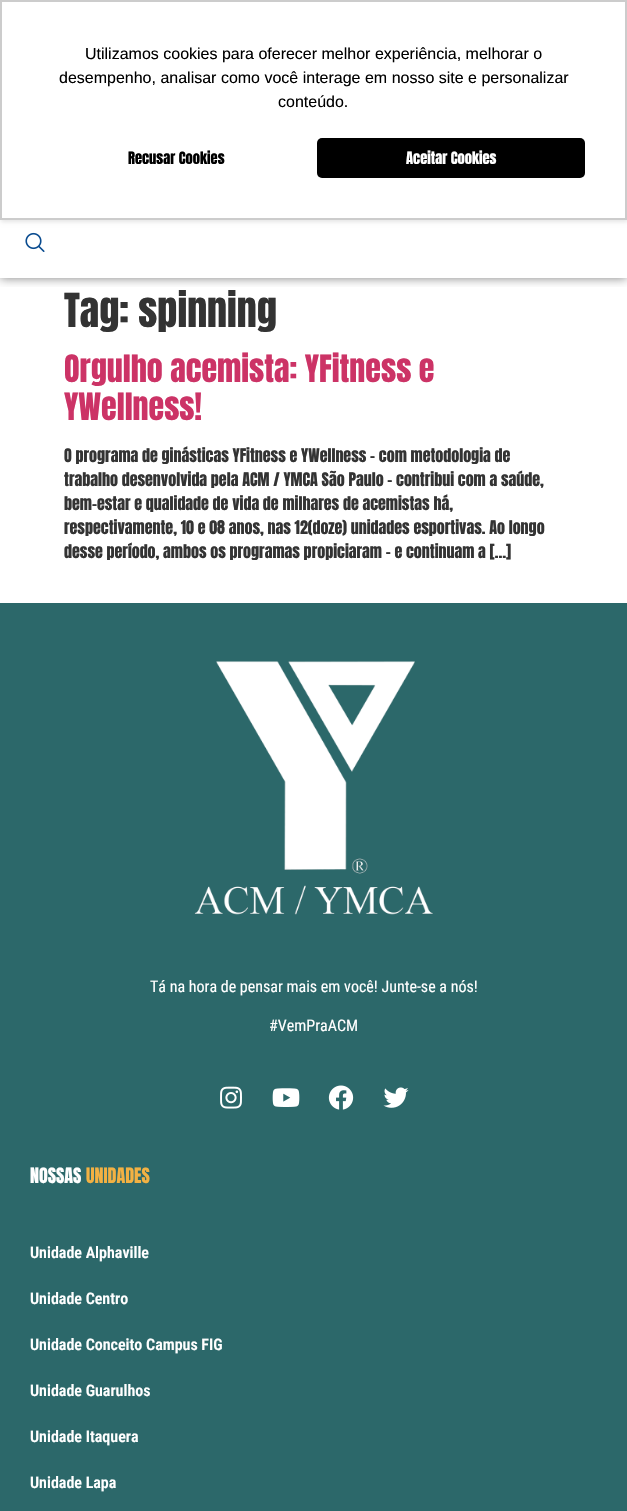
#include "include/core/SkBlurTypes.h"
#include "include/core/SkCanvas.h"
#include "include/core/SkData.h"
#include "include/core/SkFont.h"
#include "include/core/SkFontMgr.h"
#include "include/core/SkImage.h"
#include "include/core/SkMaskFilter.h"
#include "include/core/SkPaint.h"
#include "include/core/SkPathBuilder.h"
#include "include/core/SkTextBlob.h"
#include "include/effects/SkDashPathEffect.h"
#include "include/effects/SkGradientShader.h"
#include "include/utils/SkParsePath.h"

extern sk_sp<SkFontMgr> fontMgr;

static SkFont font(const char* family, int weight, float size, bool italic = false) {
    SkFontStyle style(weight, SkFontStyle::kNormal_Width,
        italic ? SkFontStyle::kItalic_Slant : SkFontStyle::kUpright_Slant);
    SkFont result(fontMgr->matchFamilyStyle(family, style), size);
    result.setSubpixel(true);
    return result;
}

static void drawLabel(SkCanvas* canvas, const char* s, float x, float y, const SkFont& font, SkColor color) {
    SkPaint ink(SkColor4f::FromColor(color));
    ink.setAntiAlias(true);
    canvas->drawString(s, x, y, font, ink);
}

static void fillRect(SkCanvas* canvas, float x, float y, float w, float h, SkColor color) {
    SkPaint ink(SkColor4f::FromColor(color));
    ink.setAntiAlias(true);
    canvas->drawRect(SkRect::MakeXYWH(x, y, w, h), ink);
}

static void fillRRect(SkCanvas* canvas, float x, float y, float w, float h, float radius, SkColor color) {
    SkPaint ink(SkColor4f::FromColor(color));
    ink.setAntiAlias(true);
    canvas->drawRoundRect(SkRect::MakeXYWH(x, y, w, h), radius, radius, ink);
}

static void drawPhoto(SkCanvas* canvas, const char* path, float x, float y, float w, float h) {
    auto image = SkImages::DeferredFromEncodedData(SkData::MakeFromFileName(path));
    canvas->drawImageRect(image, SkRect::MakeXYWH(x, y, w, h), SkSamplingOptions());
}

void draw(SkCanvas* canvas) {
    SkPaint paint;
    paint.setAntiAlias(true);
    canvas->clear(0xFFFFFFFF);
    paint.setColor(0x1A000000);
    paint.setMaskFilter(SkMaskFilter::MakeBlur(kNormal_SkBlurStyle, 2));
    canvas->drawRect(SkRect::MakeXYWH(1, 2, 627, 220), paint);
    paint.setMaskFilter(nullptr);
    canvas->save();
    canvas->clipRect(SkRect::MakeXYWH(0, 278, 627, 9));
    paint.setColor(0x80000000);
    paint.setMaskFilter(SkMaskFilter::MakeBlur(kNormal_SkBlurStyle, 5));
    canvas->drawRect(SkRect::MakeXYWH(0, 0, 627, 278), paint);
    paint.setMaskFilter(nullptr);
    canvas->restore();
    paint.setColor(0xFFFFFFFF);
    canvas->drawRect(SkRect::MakeXYWH(1, 1, 625, 218), paint);
    paint.setStroke(true);
    paint.setStrokeWidth(2);
    paint.setColor(0xFFCCCCCC);
    canvas->drawRect(SkRect::MakeXYWH(1, 1, 625, 218), paint);
    SkFont font1 = font("Liberation Sans", 400, 16);
    drawLabel(canvas, "Utilizamos cookies para oferecer melhor experiência, melhorar o", 85, 59, font1, 0xFF000000);
    drawLabel(canvas, "desempenho, analisar como você interage em nosso site e personalizar", 59, 83, font1, 0xFF000000);
    drawLabel(canvas, "conteúdo.", 278, 107, font1, 0xFF000000);
    SkFont font2 = font("Anton", 400, 14.5f);
    drawLabel(canvas, "Recusar Cookies", 128, 164, font2, 0xFF000000);
    fillRRect(canvas, 317, 138, 268, 40, 5, 0xFF000000);
    drawLabel(canvas, "Aceitar Cookies", 406, 164, font2, 0xFFFFFFFF);
    drawPhoto(canvas, "assets/img1.png", 25, 232, 20, 20);
    SkFont font3 = font("Anton", 400, 40);
    drawLabel(canvas, "Tag: spinning", 64, 327, font3, 0xFF333333);
    SkFont font4 = font("Anton", 400, 32);
    drawLabel(canvas, "Orgulho acemista: YFitness e", 64, 382, font4, 0xFFCC3366);
    drawLabel(canvas, "YWellness!", 64, 420, font4, 0xFFCC3366);
    SkFont font5 = font("Anton", 400, 16);
    drawLabel(canvas, "O programa de ginásticas YFitness e YWellness – com metodologia de", 64, 462, font5, 0xFF333333);
    drawLabel(canvas, "trabalho desenvolvida pela ACM / YMCA São Paulo – contribui com a saúde,", 64, 486, font5, 0xFF333333);
    drawLabel(canvas, "bem-estar e qualidade de vida de milhares de acemistas há,", 64, 510, font5, 0xFF333333);
    drawLabel(canvas, "respectivamente, 10 e 08 anos, nas 12(doze) unidades esportivas. Ao longo", 64, 534, font5, 0xFF333333);
    drawLabel(canvas, "desse período, ambos os programas propiciaram – e continuam a […]", 64, 558, font5, 0xFF333333);
    fillRect(canvas, 0, 603, 627, 908, 0xFF2C686A);
    drawPhoto(canvas, "assets/img2.png", 194, 661, 239, 254);
    SkFont font6 = font("Roboto Condensed", 400, 16);
    drawLabel(canvas, "Tá na hora de pensar mais em você! Junte-se a nós!", 150, 992, font6, 0xFFFFFFFF);
    drawLabel(canvas, "#VemPraACM", 269, 1031, font6, 0xFFFFFFFF);
    drawPhoto(canvas, "assets/img3.png", 220, 1086, 22, 23);
    drawPhoto(canvas, "assets/img4.png", 272, 1088, 28, 19);
    drawPhoto(canvas, "assets/img5.png", 328, 1085, 26, 25);
    drawPhoto(canvas, "assets/img6.png", 383, 1087, 26, 21);
    SkFont font7 = font("Anton", 400, 18);
    drawLabel(canvas, "NOSSAS", 30, 1183, font7, 0xFFFFFFFF);
    drawLabel(canvas, "UNIDADES", 86, 1183, font7, 0xFFF2B143);
    SkFont font8 = font("Roboto Condensed", 600, 16);
    drawLabel(canvas, "Unidade Alphaville", 30, 1258, font8, 0xFFFFFFFF);
    drawLabel(canvas, "Unidade Centro", 30, 1304, font8, 0xFFFFFFFF);
    drawLabel(canvas, "Unidade Conceito Campus FIG", 30, 1350, font8, 0xFFFFFFFF);
    drawLabel(canvas, "Unidade Guarulhos", 30, 1396, font8, 0xFFFFFFFF);
    drawLabel(canvas, "Unidade Itaquera", 30, 1442, font8, 0xFFFFFFFF);
    drawLabel(canvas, "Unidade Lapa", 30, 1488, font8, 0xFFFFFFFF);
}
